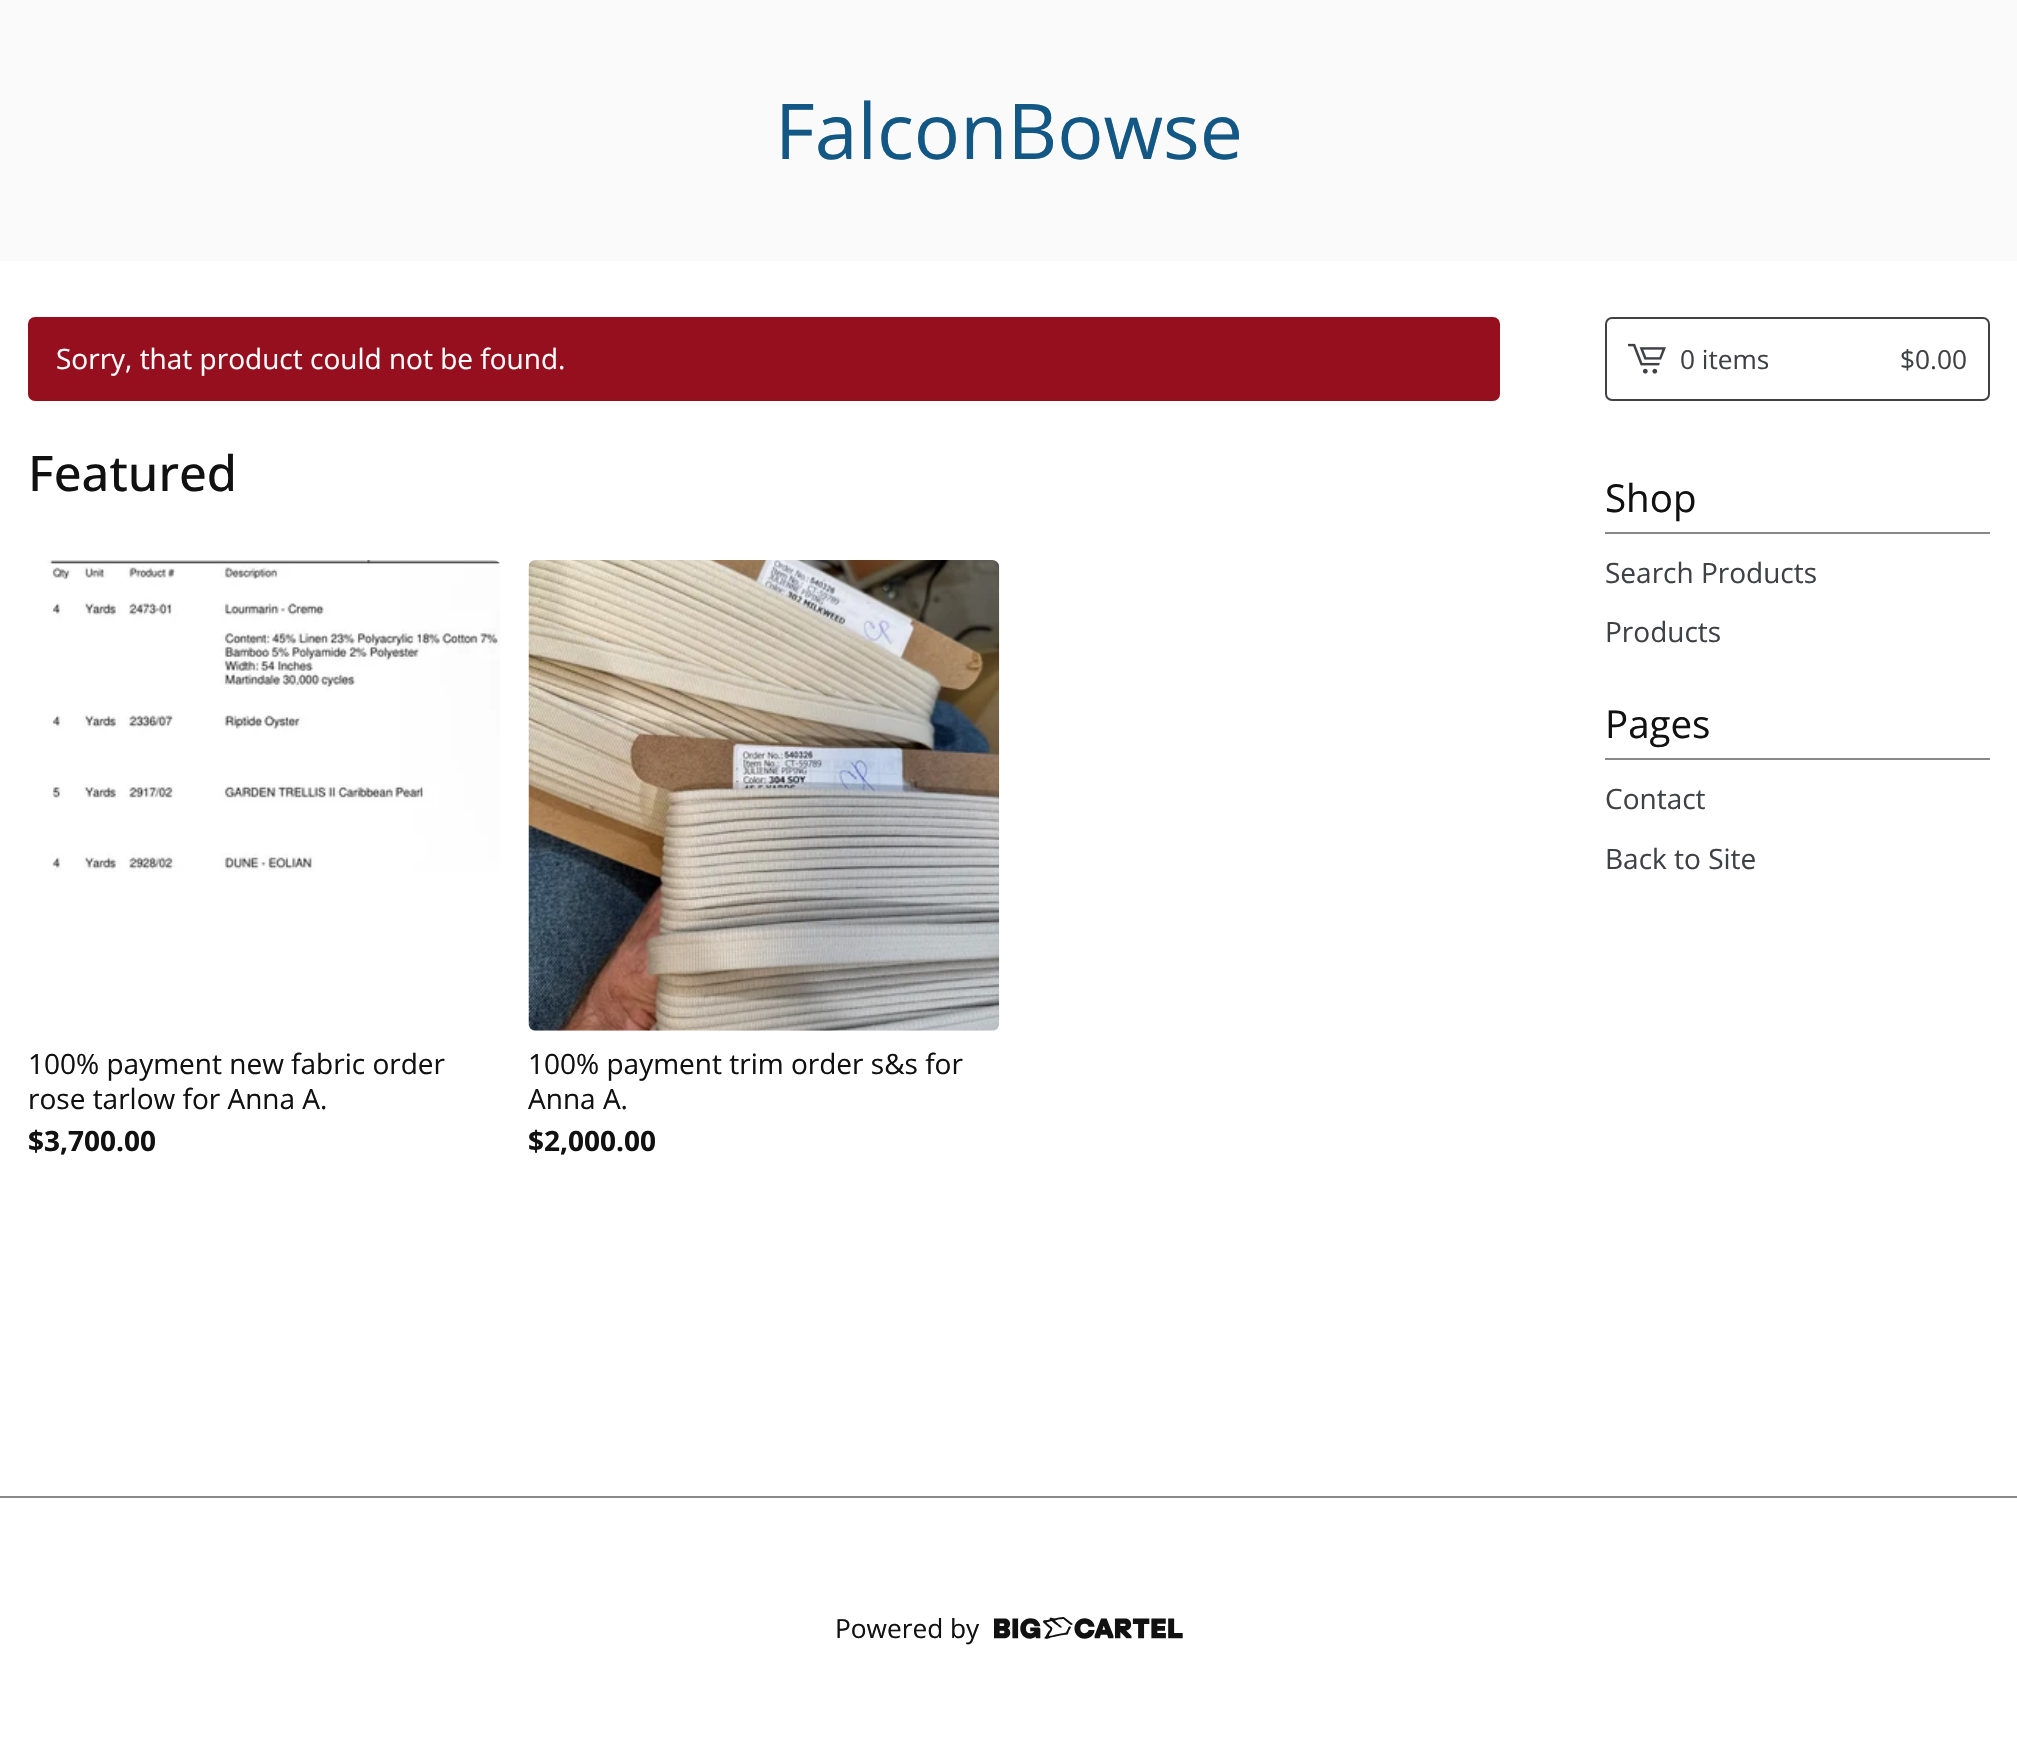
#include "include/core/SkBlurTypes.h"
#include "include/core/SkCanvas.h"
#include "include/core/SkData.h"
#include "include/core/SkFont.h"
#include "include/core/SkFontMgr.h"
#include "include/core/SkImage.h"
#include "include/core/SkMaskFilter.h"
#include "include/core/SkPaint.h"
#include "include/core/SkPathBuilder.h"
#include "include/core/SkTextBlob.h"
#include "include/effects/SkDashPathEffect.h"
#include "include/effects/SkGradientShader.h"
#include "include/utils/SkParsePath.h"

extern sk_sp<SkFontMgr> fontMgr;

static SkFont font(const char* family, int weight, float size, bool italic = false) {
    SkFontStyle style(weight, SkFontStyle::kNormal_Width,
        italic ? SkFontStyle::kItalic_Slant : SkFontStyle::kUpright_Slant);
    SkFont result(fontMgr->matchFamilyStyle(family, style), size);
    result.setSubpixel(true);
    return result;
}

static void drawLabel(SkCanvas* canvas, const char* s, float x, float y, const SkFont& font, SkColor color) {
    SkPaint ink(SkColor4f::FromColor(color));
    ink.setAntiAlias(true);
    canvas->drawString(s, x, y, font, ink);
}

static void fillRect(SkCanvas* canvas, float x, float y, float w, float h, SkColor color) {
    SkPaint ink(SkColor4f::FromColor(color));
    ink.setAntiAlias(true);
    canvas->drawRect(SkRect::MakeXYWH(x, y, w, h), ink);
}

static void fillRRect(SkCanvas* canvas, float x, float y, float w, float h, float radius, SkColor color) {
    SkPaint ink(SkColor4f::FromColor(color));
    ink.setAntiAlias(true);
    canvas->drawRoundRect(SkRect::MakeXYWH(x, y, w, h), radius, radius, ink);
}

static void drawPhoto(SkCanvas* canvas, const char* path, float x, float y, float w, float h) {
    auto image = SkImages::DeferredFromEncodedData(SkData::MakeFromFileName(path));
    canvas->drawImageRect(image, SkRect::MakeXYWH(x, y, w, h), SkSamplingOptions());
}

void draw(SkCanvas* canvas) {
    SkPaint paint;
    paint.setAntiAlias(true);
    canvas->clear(0xFFFFFFFF);
    fillRect(canvas, 0, 0, 2017, 261, 0xFFFAFAFA);
    SkFont font1 = font("Open Sans", 400, 77);
    drawLabel(canvas, "FalconBowse", 775, 159, font1, 0xFF135884);
    fillRRect(canvas, 28, 317, 1472, 84, 7, 0xFF950F1E);
    SkFont font2 = font("Open Sans", 400, 28);
    drawLabel(canvas, "Sorry, that product could not be found.", 56, 369, font2, 0xFFFFFFFF);
    SkFont font3 = font("Open Sans", 500, 49);
    drawLabel(canvas, "Featured", 28, 491, font3, 0xFF111111);
    drawPhoto(canvas, "assets/img1.png", 47, 560, 453, 312);
    drawLabel(canvas, "100% payment new fabric order", 28, 1074, font2, 0xFF111111);
    drawLabel(canvas, "rose tarlow for Anna A.", 28, 1109, font2, 0xFF111111);
    SkFont font4 = font("Open Sans", 700, 28);
    drawLabel(canvas, "$3,700.00", 28, 1151, font4, 0xFF111111);
    drawPhoto(canvas, "assets/img2.png", 528, 560, 472, 471);
    drawLabel(canvas, "100% payment trim order s&s for", 528, 1074, font2, 0xFF111111);
    drawLabel(canvas, "Anna A.", 528, 1109, font2, 0xFF111111);
    drawLabel(canvas, "$2,000.00", 528, 1151, font4, 0xFF111111);
    paint.setStroke(true);
    paint.setStrokeWidth(2);
    paint.setColor(0xFF404147);
    canvas->drawRoundRect(SkRect::MakeXYWH(1606, 318, 383, 82), 6, 6, paint);
    drawPhoto(canvas, "assets/img3.png", 1628, 343, 38, 31);
    SkFont font5 = font("Open Sans", 400, 26.25f);
    drawLabel(canvas, "0 items", 1680, 369, font5, 0xFF404147);
    drawLabel(canvas, "$0.00", 1900, 369, font5, 0xFF404147);
    fillRect(canvas, 1605, 532, 385, 2, 0xFF888888);
    SkFont font6 = font("Open Sans", 400, 38.5f);
    drawLabel(canvas, "Shop", 1605, 512, font6, 0xFF111111);
    drawLabel(canvas, "Search Products", 1605, 583, font2, 0xFF404147);
    drawLabel(canvas, "Products", 1605, 642, font2, 0xFF404147);
    fillRect(canvas, 1605, 758, 385, 2, 0xFF888888);
    drawLabel(canvas, "Pages", 1605, 738, font6, 0xFF111111);
    drawLabel(canvas, "Contact", 1605, 809, font2, 0xFF404147);
    drawLabel(canvas, "Back to Site", 1605, 869, font2, 0xFF404147);
    fillRect(canvas, 0, 1496, 2017, 2, 0xFF888888);
    drawLabel(canvas, "Powered by", 835, 1638, font5, 0xFF111111);
    drawPhoto(canvas, "assets/img4.png", 994, 1617, 189, 22);
}
